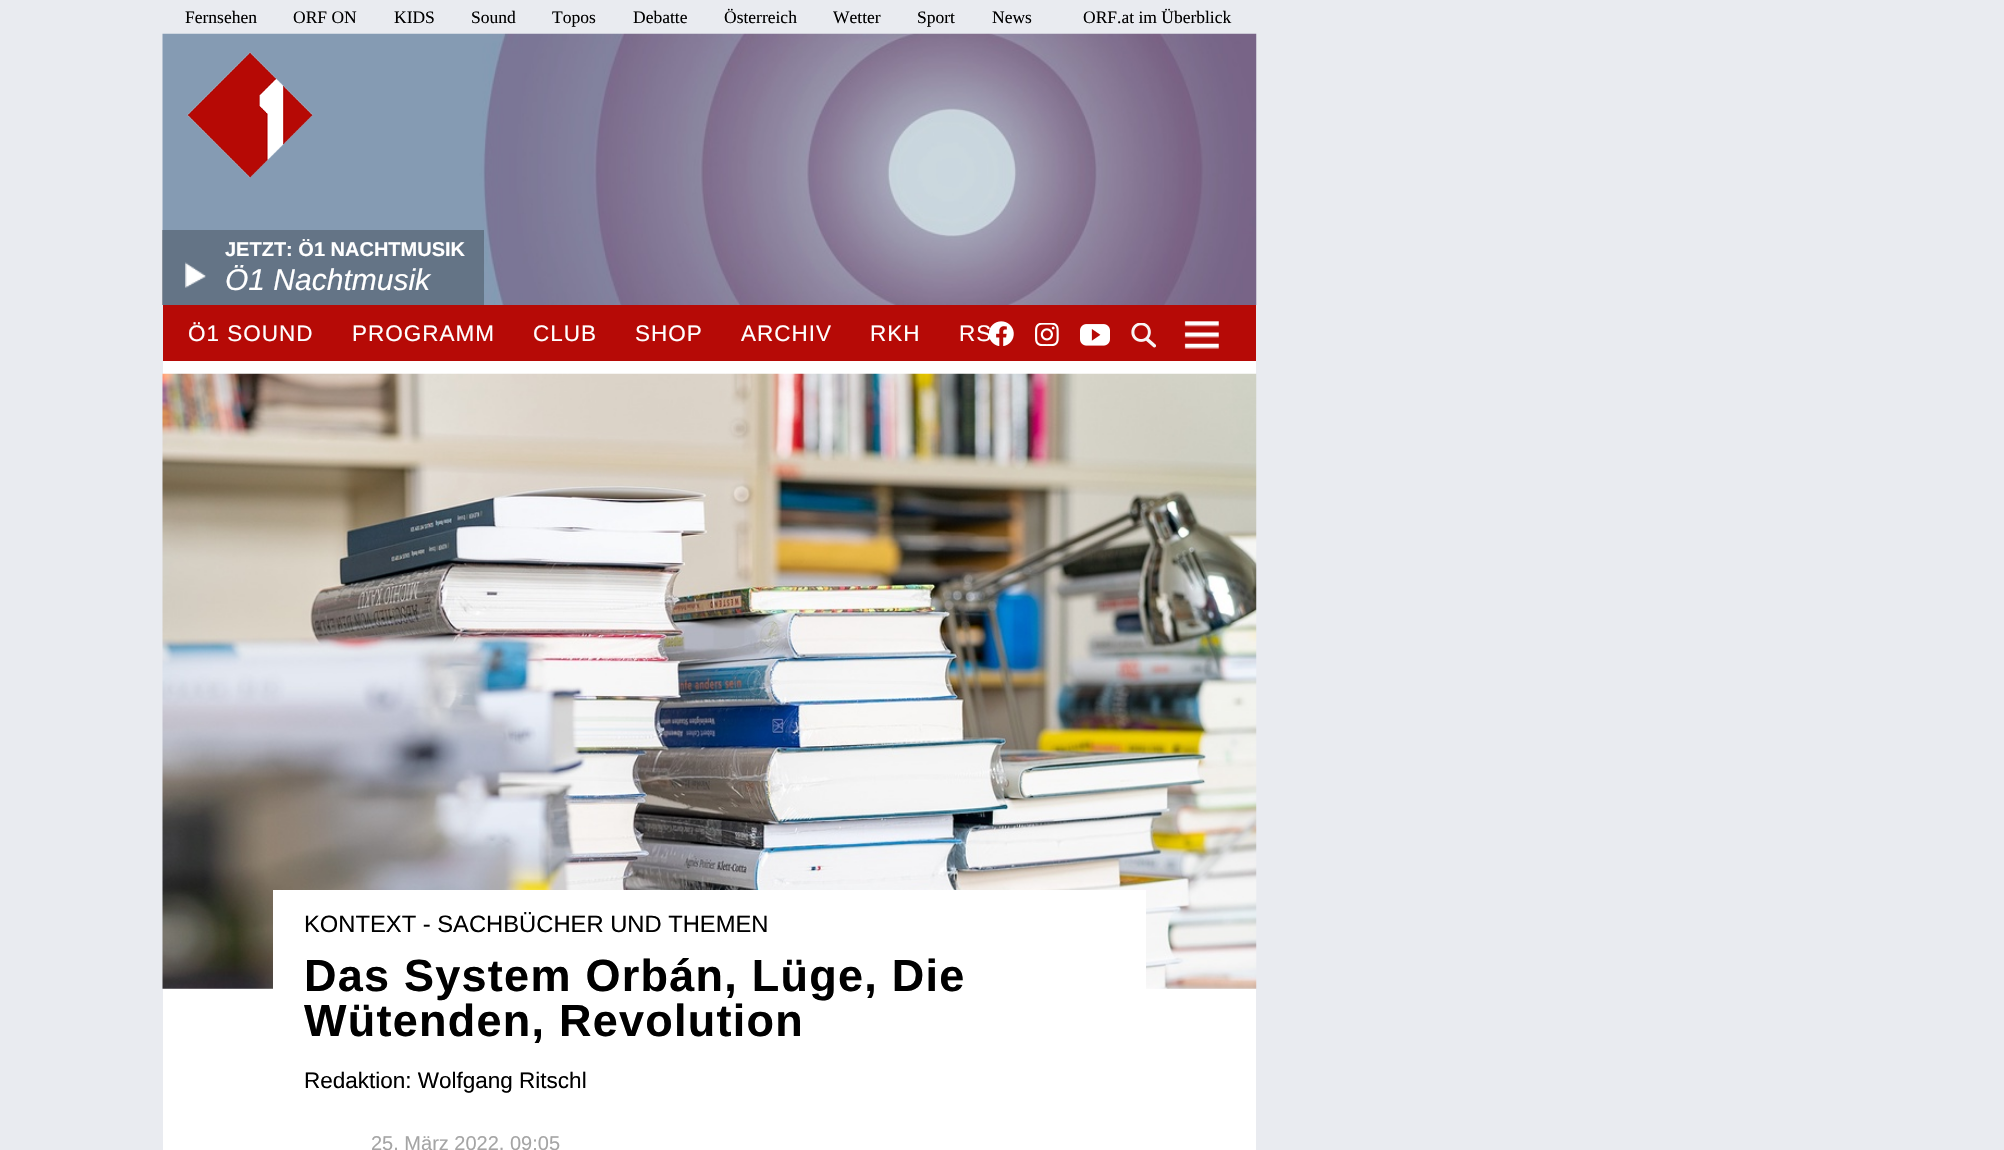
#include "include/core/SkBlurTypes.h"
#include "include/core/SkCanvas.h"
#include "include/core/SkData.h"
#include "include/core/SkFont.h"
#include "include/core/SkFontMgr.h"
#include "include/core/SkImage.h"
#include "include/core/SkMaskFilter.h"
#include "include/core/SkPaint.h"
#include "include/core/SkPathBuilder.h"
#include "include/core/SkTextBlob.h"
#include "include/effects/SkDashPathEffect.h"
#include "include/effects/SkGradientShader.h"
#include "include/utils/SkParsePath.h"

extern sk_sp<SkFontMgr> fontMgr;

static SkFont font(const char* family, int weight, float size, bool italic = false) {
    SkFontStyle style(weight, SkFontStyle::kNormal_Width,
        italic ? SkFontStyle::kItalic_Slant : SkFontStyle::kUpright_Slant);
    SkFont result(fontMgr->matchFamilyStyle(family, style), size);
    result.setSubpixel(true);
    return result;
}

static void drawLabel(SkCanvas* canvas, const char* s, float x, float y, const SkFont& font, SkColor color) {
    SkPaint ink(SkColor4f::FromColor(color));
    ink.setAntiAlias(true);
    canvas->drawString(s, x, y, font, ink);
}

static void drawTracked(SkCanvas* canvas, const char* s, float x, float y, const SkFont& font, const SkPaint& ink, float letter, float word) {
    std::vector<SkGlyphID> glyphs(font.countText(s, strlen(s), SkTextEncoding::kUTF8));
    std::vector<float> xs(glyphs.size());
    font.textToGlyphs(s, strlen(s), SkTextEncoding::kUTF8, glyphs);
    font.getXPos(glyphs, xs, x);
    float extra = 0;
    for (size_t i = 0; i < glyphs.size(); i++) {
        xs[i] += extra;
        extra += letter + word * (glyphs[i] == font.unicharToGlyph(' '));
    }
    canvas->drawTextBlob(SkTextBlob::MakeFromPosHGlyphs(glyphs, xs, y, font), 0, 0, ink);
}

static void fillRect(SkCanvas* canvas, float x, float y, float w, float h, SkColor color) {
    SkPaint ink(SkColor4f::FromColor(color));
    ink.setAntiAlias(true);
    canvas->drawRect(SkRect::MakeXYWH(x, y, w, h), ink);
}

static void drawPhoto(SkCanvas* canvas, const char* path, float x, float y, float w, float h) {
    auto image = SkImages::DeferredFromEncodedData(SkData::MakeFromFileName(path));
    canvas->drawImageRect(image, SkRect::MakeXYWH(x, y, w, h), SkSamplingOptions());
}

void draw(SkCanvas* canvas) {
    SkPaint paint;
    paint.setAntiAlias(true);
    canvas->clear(0xFFE9EBF0);
    fillRect(canvas, 163, 361, 1093, 789, 0xFFFFFFFF);
    SkFont font1 = font("Liberation Serif", 400, 17.5f);
    drawLabel(canvas, "Fernsehen", 185, 23, font1, 0xFF000000);
    drawLabel(canvas, "ORF ON", 293, 23, font1, 0xFF000000);
    drawLabel(canvas, "KIDS", 394, 23, font1, 0xFF000000);
    drawLabel(canvas, "Sound", 471, 23, font1, 0xFF000000);
    drawLabel(canvas, "Topos", 552, 23, font1, 0xFF000000);
    drawLabel(canvas, "Debatte", 633, 23, font1, 0xFF000000);
    drawLabel(canvas, "Österreich", 724, 23, font1, 0xFF000000);
    drawLabel(canvas, "Wetter", 833, 23, font1, 0xFF000000);
    drawLabel(canvas, "Sport", 917, 23, font1, 0xFF000000);
    drawLabel(canvas, "News", 992, 23, font1, 0xFF000000);
    drawLabel(canvas, "ORF.at im Überblick", 1083, 23, font1, 0xFF000000);
    drawPhoto(canvas, "assets/img2.png", 162, 33, 1095, 272);
    drawPhoto(canvas, "assets/img1.png", 187, 52, 126, 126);
    fillRect(canvas, 162, 230, 322, 75, 0x40000000);
    SkFont font2 = font("Liberation Sans", 700, 20);
    drawLabel(canvas, "JETZT: Ö1 NACHTMUSIK", 225, 256, font2, 0xFFFFFFFF);
    drawPhoto(canvas, "assets/img3.png", 185, 262, 21, 26);
    SkFont font3 = font("Liberation Sans", 400, 30, true);
    drawLabel(canvas, "Ö1 Nachtmusik", 225, 290, font3, 0xFFFFFFFF);
    fillRect(canvas, 163, 305, 1093, 56, 0xFFB60A06);
    SkFont font4 = font("Liberation Sans", 400, 22.5f);
    paint.setColor(0xFFFFFFFF);
    drawTracked(canvas, "Ö1 SOUND", 188, 341, font4, paint, 1, 0);
    drawTracked(canvas, "PROGRAMM", 352, 341, font4, paint, 1, 0);
    drawTracked(canvas, "CLUB", 533, 341, font4, paint, 1, 0);
    drawTracked(canvas, "SHOP", 635, 341, font4, paint, 1, 0);
    drawTracked(canvas, "ARCHIV", 741, 341, font4, paint, 1, 0);
    drawTracked(canvas, "RKH", 870, 341, font4, paint, 1, 0);
    drawTracked(canvas, "RS", 959, 341, font4, paint, 1, 0);
    drawPhoto(canvas, "assets/img4.png", 989, 321, 25, 25);
    drawPhoto(canvas, "assets/img5.png", 1035, 323, 24, 23);
    drawPhoto(canvas, "assets/img6.png", 1080, 324, 30, 22);
    drawPhoto(canvas, "assets/img7.png", 1131, 323, 25, 25);
    drawPhoto(canvas, "assets/img8.png", 1184, 321, 35, 28);
    drawPhoto(canvas, "assets/img9.png", 162, 373, 1095, 616);
    fillRect(canvas, 273, 890, 873, 99, 0xFFFFFFFF);
    SkFont font5 = font("Liberation Sans", 400, 23.75f);
    drawLabel(canvas, "KONTEXT - SACHBÜCHER UND THEMEN", 304, 932, font5, 0xFF000000);
    SkFont font6 = font("Liberation Sans", 700, 45);
    paint.setColor(0xFF000000);
    drawTracked(canvas, "Das System Orbán, Lüge, Die", 304, 991, font6, paint, 1.25f, 0);
    drawTracked(canvas, "Wütenden, Revolution", 304, 1036, font6, paint, 1.25f, 0);
    drawLabel(canvas, "Redaktion: Wolfgang Ritschl", 304, 1088, font4, 0xFF000000);
    SkFont font7 = font("Liberation Sans", 400, 20);
    drawLabel(canvas, "25. März 2022, 09:05", 371, 1150, font7, 0xFFA5A5A5);
}
